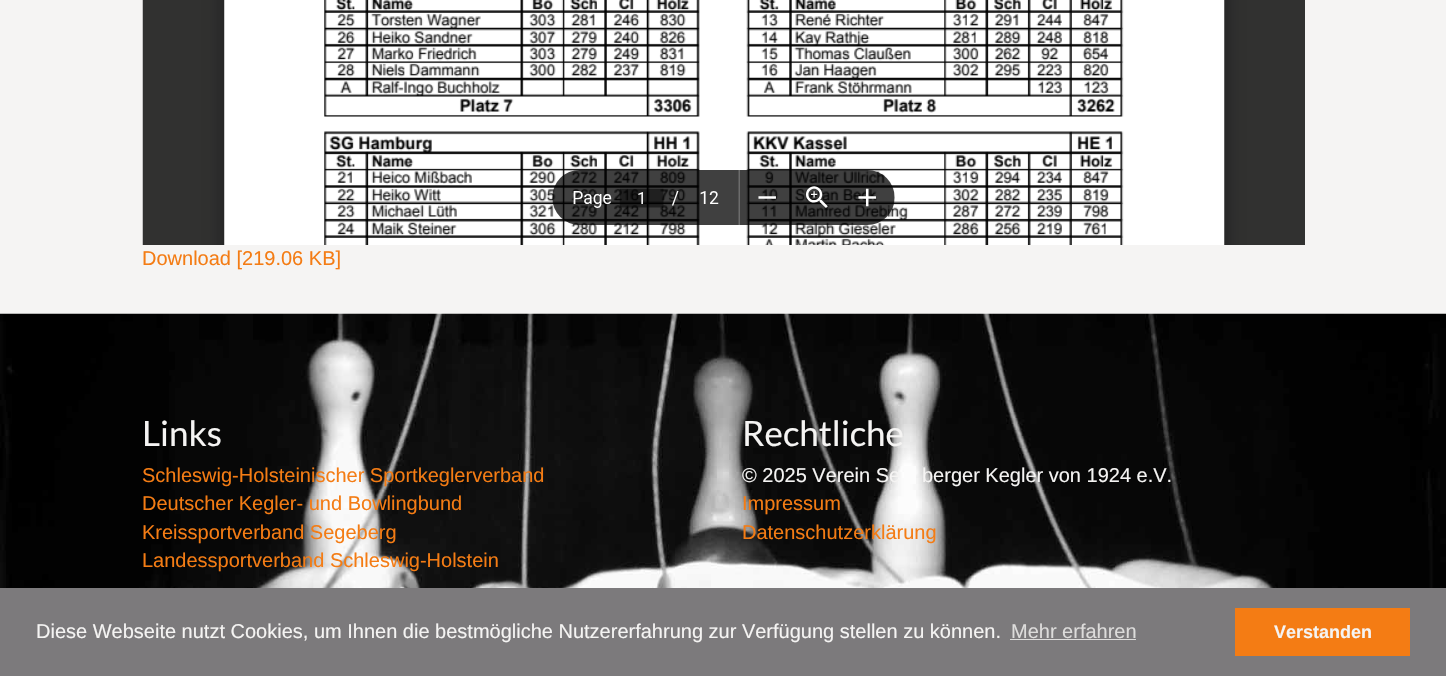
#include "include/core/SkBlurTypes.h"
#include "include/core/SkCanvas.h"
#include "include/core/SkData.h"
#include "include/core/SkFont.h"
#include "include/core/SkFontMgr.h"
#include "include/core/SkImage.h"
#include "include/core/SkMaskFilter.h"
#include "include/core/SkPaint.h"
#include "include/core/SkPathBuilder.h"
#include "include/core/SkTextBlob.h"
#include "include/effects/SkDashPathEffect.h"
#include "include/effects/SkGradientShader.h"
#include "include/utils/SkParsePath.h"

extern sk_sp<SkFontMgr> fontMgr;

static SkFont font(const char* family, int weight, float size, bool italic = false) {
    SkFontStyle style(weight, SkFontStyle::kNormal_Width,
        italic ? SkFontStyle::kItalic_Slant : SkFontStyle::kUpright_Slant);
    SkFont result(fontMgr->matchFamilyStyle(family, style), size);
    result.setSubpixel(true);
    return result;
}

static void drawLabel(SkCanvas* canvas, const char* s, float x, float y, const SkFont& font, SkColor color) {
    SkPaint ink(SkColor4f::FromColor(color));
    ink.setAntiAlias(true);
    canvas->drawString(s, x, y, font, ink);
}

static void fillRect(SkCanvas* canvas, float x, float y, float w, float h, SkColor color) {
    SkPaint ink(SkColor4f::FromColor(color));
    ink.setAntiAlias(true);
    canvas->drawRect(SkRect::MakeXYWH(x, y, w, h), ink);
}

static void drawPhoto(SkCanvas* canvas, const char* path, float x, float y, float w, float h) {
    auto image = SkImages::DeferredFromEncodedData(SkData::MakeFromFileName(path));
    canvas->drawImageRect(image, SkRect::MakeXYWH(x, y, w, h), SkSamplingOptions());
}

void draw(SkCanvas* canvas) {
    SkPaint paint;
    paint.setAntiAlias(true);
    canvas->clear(0xFFF5F4F3);
    drawPhoto(canvas, "assets/img1.png", 142, 0, 1163, 245);
    SkFont font1 = font("Liberation Sans", 400, 20);
    drawLabel(canvas, "Download [219.06 KB]", 142, 265, font1, 0xFFF47C14);
    drawPhoto(canvas, "assets/img2.png", 0, 313, 1446, 275);
    SkFont font2 = font("Lato", 400, 35);
    drawLabel(canvas, "Links", 142, 446, font2, 0xFFF5F4F3);
    drawLabel(canvas, "Schleswig-Holsteinischer Sportkeglerverband", 142, 482, font1, 0xFFF47C14);
    drawLabel(canvas, "Deutscher Kegler- und Bowlingbund", 142, 510, font1, 0xFFF47C14);
    drawLabel(canvas, "Kreissportverband Segeberg", 142, 539, font1, 0xFFF47C14);
    drawLabel(canvas, "Landessportverband Schleswig-Holstein", 142, 567, font1, 0xFFF47C14);
    drawLabel(canvas, "Rechtliche", 742, 446, font2, 0xFFF5F4F3);
    drawLabel(canvas, "© 2025 Verein Se", 742, 482, font1, 0xFFF5F4F3);
    drawLabel(canvas, "berger Kegler von 1924 e.V.", 922, 482, font1, 0xFFF5F4F3);
    drawLabel(canvas, "Impressum", 742, 510, font1, 0xFFF47C14);
    drawLabel(canvas, "Datenschutzerklärung", 742, 539, font1, 0xFFF47C14);
    fillRect(canvas, 0, 588, 1446, 88, 0xFF7C7A7C);
    drawLabel(canvas, "Diese Webseite nutzt Cookies, um Ihnen die bestmögliche Nutzererfahrung zur Verfügung stellen zu können.", 36, 638, font1, 0xFFF5F4F3);
    drawLabel(canvas, "Mehr erfahren", 1011, 638, font1, 0xFFDDDCDB);
    fillRect(canvas, 1010, 639, 126, 1, 0xFFDDDCDB);
    fillRect(canvas, 1235, 608, 175, 48, 0xFFF47C14);
    SkFont font3 = font("Liberation Sans", 700, 18);
    drawLabel(canvas, "Verstanden", 1274, 638, font3, 0xFFF5F4F3);
}
